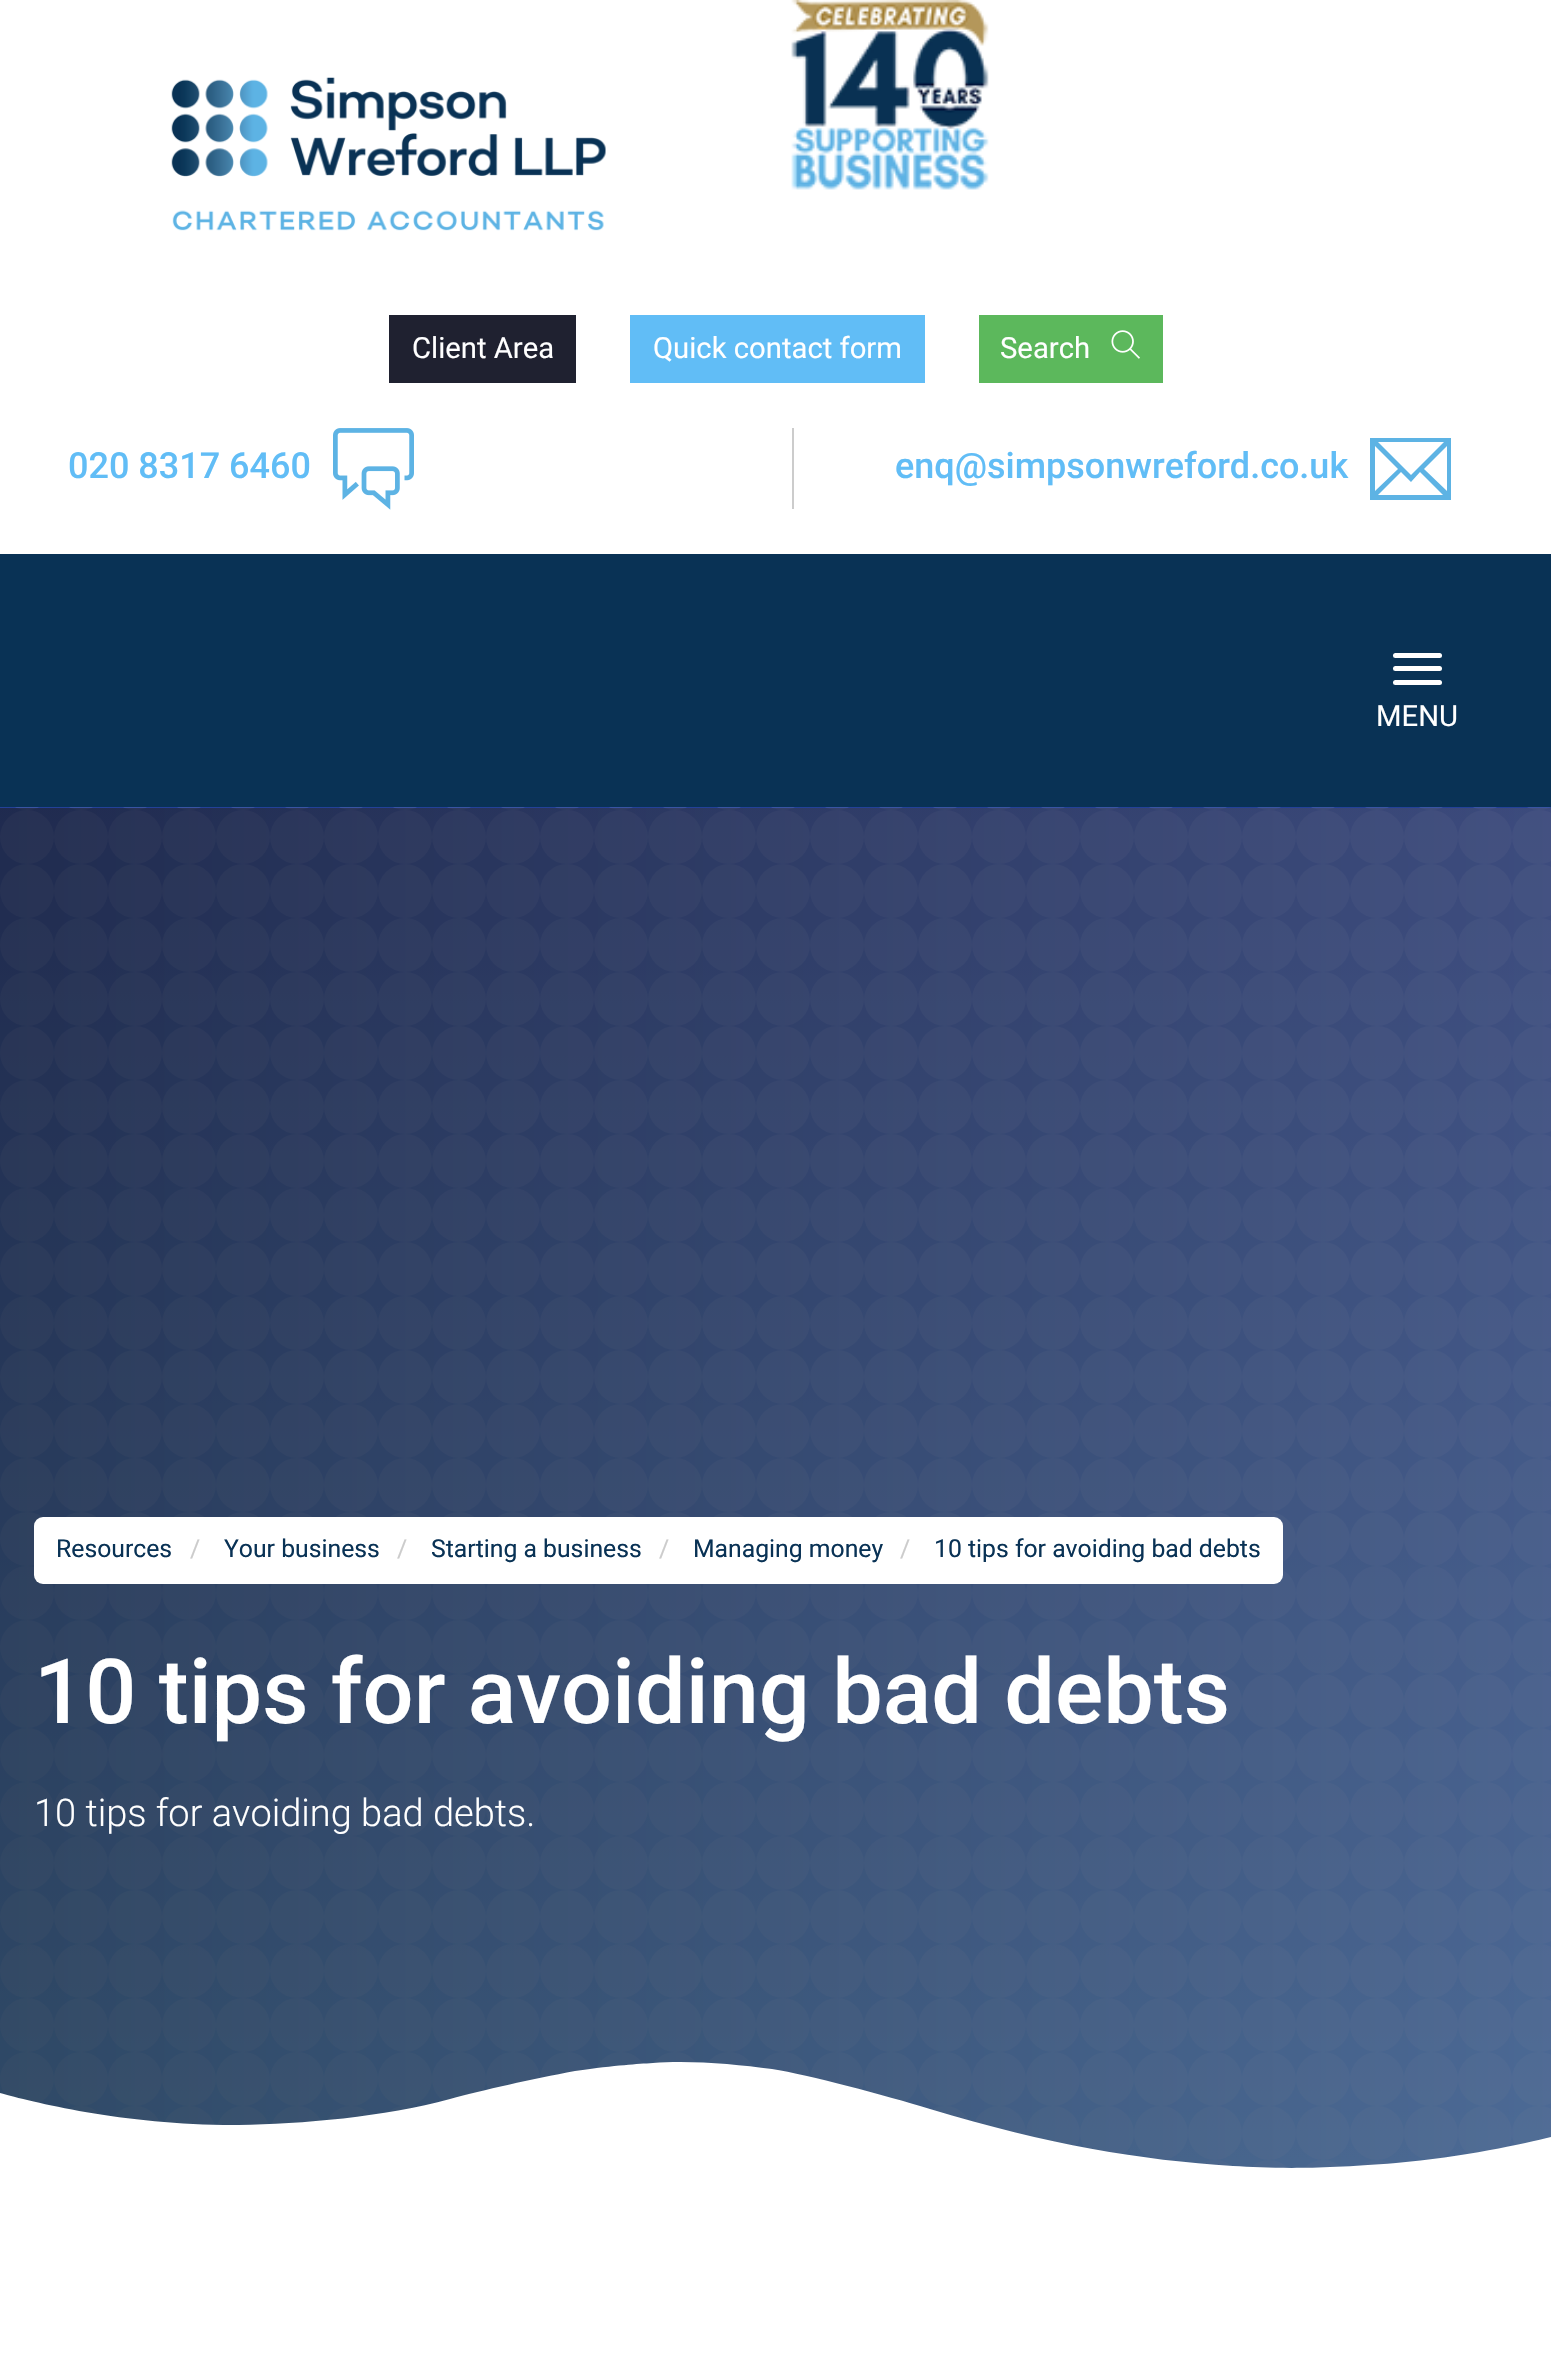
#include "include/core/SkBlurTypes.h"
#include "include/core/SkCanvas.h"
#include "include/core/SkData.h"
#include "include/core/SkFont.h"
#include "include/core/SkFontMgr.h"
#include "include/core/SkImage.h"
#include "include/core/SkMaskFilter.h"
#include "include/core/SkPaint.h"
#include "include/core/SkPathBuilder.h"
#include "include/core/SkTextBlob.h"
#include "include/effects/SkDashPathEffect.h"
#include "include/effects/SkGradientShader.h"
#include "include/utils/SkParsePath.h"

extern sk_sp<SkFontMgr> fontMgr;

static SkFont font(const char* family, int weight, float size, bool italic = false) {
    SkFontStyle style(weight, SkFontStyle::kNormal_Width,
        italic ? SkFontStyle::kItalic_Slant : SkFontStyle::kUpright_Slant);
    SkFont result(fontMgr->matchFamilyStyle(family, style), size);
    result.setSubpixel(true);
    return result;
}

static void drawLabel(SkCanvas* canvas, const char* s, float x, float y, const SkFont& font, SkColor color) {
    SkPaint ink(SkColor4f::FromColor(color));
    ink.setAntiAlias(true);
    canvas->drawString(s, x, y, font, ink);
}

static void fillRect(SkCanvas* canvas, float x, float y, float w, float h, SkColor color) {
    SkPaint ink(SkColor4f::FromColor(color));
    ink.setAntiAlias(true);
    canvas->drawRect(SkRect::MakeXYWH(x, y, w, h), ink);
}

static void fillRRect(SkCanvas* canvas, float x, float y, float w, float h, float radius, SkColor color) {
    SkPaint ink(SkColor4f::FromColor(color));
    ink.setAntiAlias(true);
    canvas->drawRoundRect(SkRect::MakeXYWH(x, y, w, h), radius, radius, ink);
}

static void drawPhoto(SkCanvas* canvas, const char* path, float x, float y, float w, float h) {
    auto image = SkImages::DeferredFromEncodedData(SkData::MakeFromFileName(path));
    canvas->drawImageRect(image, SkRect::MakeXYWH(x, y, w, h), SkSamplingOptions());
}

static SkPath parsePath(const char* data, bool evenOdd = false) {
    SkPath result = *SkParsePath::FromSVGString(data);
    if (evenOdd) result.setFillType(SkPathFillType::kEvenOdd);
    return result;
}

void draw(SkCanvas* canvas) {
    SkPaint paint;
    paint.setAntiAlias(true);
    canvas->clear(0xFFFFFFFF);
    drawPhoto(canvas, "assets/img1.png", 171, 77, 435, 154);
    drawPhoto(canvas, "assets/img2.png", 791, 0, 198, 190);
    fillRect(canvas, 389, 315, 187, 68, 0xFF1F2130);
    SkFont font1 = font("Roboto", 400, 29.25f);
    drawLabel(canvas, "Client Area", 412, 358, font1, 0xFFFFFFFF);
    fillRect(canvas, 630, 315, 295, 68, 0xFF61BDF6);
    drawLabel(canvas, "Quick contact form", 653, 358, font1, 0xFFFFFFFF);
    fillRect(canvas, 979, 315, 184, 68, 0xFF5CB85C);
    drawLabel(canvas, "Search", 1000, 358, font1, 0xFFFFFFFF);
    drawPhoto(canvas, "assets/img3.png", 1111, 330, 29, 29);
    SkFont font2 = font("Roboto", 500, 36);
    drawLabel(canvas, "020 8317 6460", 68, 478, font2, 0xFF61BDF6);
    drawPhoto(canvas, "assets/img4.png", 333, 428, 81, 82);
    fillRect(canvas, 792, 428, 2, 81, 0xFFCCCCCC);
    drawLabel(canvas, "enq@simpsonwreford.co.uk", 895, 478, font2, 0xFF61BDF6);
    paint.setColor(0xFF5DB3E4);
    canvas->drawPath(parsePath("M1370 438V500H1451V438ZM1411 475L1378 442H1444ZM1398 469L1375 491V446ZM1401 472L1411 482L1420 472L1443 495H1378ZM1424 469L1447 446V491Z"), paint);
    fillRect(canvas, 0, 554, 1551, 253, 0xFF093255);
    fillRRect(canvas, 1393, 653, 49, 5, 2.5f, 0xFFFFFFFF);
    fillRRect(canvas, 1393, 666, 49, 5, 2.5f, 0xFFFFFFFF);
    fillRRect(canvas, 1393, 680, 49, 5, 2.5f, 0xFFFFFFFF);
    drawLabel(canvas, "MENU", 1376, 726, font1, 0xFFFFFFFF);
    drawPhoto(canvas, "assets/img5.png", 0, 807, 1551, 1361);
    fillRRect(canvas, 34, 1517, 1249, 67, 9, 0xFFFFFFFF);
    SkFont font3 = font("Roboto", 400, 24.75f);
    drawLabel(canvas, "Resources", 56, 1557, font3, 0xFF093255);
    drawLabel(canvas, "/", 190, 1557, font3, 0xFFCCCCCC);
    drawLabel(canvas, "Your business", 224, 1557, font3, 0xFF093255);
    drawLabel(canvas, "/", 397, 1557, font3, 0xFFCCCCCC);
    drawLabel(canvas, "Starting a business", 431, 1557, font3, 0xFF093255);
    drawLabel(canvas, "/", 659, 1557, font3, 0xFFCCCCCC);
    drawLabel(canvas, "Managing money", 693, 1557, font3, 0xFF093255);
    drawLabel(canvas, "/", 900, 1557, font3, 0xFFCCCCCC);
    drawLabel(canvas, "10 tips for avoiding bad debts", 934, 1557, font3, 0xFF093255);
    SkFont font4 = font("Roboto", 500, 90);
    drawLabel(canvas, "10 tips for avoiding bad debts", 34, 1723, font4, 0xFFFFFFFF);
    SkFont font5 = font("Roboto", 300, 38);
    drawLabel(canvas, "10 tips for avoiding bad debts.", 34, 1826, font5, 0xFFFFFFFF);
    paint.setColor(0xFFFFFFFF);
    canvas->drawPath(parsePath("M1233 2166C1140 2160 1049 2145 930 2109C884 2095 809 2075 772 2069C735 2064 689 2060 653 2063C637 2064 618 2065 575 2071C532 2079 483 2090 450 2099C385 2117 301 2124 239 2125C103 2126-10 2090-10 2090V2174H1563V2134C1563 2134 1482 2156 1396 2163C1310 2170 1270 2168 1233 2166Z"), paint);
}
